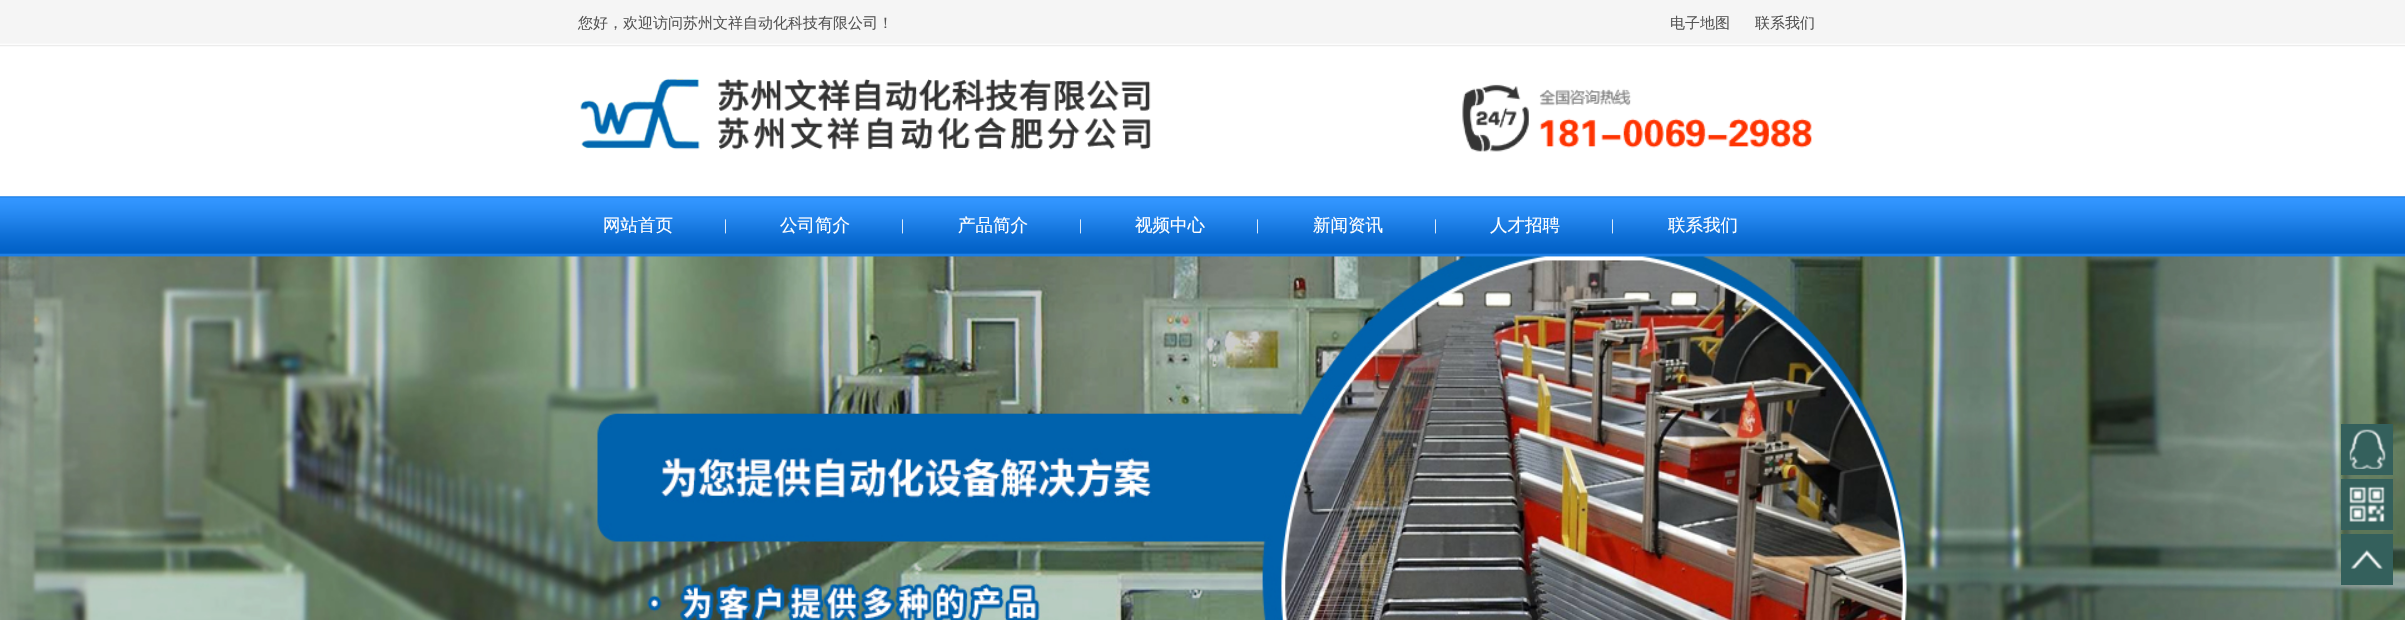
#include "include/core/SkBlurTypes.h"
#include "include/core/SkCanvas.h"
#include "include/core/SkData.h"
#include "include/core/SkFont.h"
#include "include/core/SkFontMgr.h"
#include "include/core/SkImage.h"
#include "include/core/SkMaskFilter.h"
#include "include/core/SkPaint.h"
#include "include/core/SkPathBuilder.h"
#include "include/core/SkTextBlob.h"
#include "include/effects/SkDashPathEffect.h"
#include "include/effects/SkGradientShader.h"
#include "include/utils/SkParsePath.h"

extern sk_sp<SkFontMgr> fontMgr;

static SkFont font(const char* family, int weight, float size, bool italic = false) {
    SkFontStyle style(weight, SkFontStyle::kNormal_Width,
        italic ? SkFontStyle::kItalic_Slant : SkFontStyle::kUpright_Slant);
    SkFont result(fontMgr->matchFamilyStyle(family, style), size);
    result.setSubpixel(true);
    return result;
}

static void drawLabel(SkCanvas* canvas, const char* s, float x, float y, const SkFont& font, SkColor color) {
    SkPaint ink(SkColor4f::FromColor(color));
    ink.setAntiAlias(true);
    canvas->drawString(s, x, y, font, ink);
}

static void fillRect(SkCanvas* canvas, float x, float y, float w, float h, SkColor color) {
    SkPaint ink(SkColor4f::FromColor(color));
    ink.setAntiAlias(true);
    canvas->drawRect(SkRect::MakeXYWH(x, y, w, h), ink);
}

static void drawPhoto(SkCanvas* canvas, const char* path, float x, float y, float w, float h) {
    auto image = SkImages::DeferredFromEncodedData(SkData::MakeFromFileName(path));
    canvas->drawImageRect(image, SkRect::MakeXYWH(x, y, w, h), SkSamplingOptions());
}

void draw(SkCanvas* canvas) {
    SkPaint paint;
    paint.setAntiAlias(true);
    canvas->clear(0xFFFFFFFF);
    drawPhoto(canvas, "assets/img1.png", 0, 0, 2405, 47);
    SkFont font1 = font("WenQuanYi Zen Hei", 500, 15);
    drawLabel(canvas, "您好，欢迎访问苏州文祥自动化科技有限公司！", 578, 28, font1, 0xFF555555);
    drawLabel(canvas, "电子地图", 1670, 28, font1, 0xFF555555);
    drawLabel(canvas, "联系我们", 1755, 28, font1, 0xFF555555);
    drawPhoto(canvas, "assets/img2.png", 580, 78, 571, 72);
    drawPhoto(canvas, "assets/img3.png", 1462, 84, 350, 68);
    drawPhoto(canvas, "assets/img4.png", 0, 196, 2405, 59);
    SkFont font2 = font("WenQuanYi Zen Hei", 500, 17.5f);
    drawLabel(canvas, "网站首页", 603, 231, font2, 0xFFFFFFFF);
    SkFont font3 = font("Liberation Serif", 400, 15);
    drawLabel(canvas, "|", 724, 230, font3, 0xFFFFFFFF);
    drawLabel(canvas, "公司简介", 780, 231, font2, 0xFFFFFFFF);
    drawLabel(canvas, "|", 901, 230, font3, 0xFFFFFFFF);
    drawLabel(canvas, "产品简介", 958, 231, font2, 0xFFFFFFFF);
    drawLabel(canvas, "|", 1079, 230, font3, 0xFFFFFFFF);
    drawLabel(canvas, "视频中心", 1135, 231, font2, 0xFFFFFFFF);
    drawLabel(canvas, "|", 1256, 230, font3, 0xFFFFFFFF);
    drawLabel(canvas, "新闻资讯", 1313, 231, font2, 0xFFFFFFFF);
    drawLabel(canvas, "|", 1434, 230, font3, 0xFFFFFFFF);
    drawLabel(canvas, "人才招聘", 1490, 231, font2, 0xFFFFFFFF);
    drawLabel(canvas, "|", 1611, 230, font3, 0xFFFFFFFF);
    drawLabel(canvas, "联系我们", 1668, 231, font2, 0xFFFFFFFF);
    drawPhoto(canvas, "assets/img5.png", 0, 255, 2405, 365);
    fillRect(canvas, 2341, 424, 52, 51, 0xFF34605C);
    drawPhoto(canvas, "assets/img6.png", 2349, 429, 37, 40);
    fillRect(canvas, 2341, 479, 52, 51, 0xFF34605C);
    drawPhoto(canvas, "assets/img7.png", 2349, 486, 36, 36);
    fillRect(canvas, 2341, 534, 52, 51, 0xFF34605C);
    drawPhoto(canvas, "assets/img8.png", 2351, 549, 32, 20);
}
